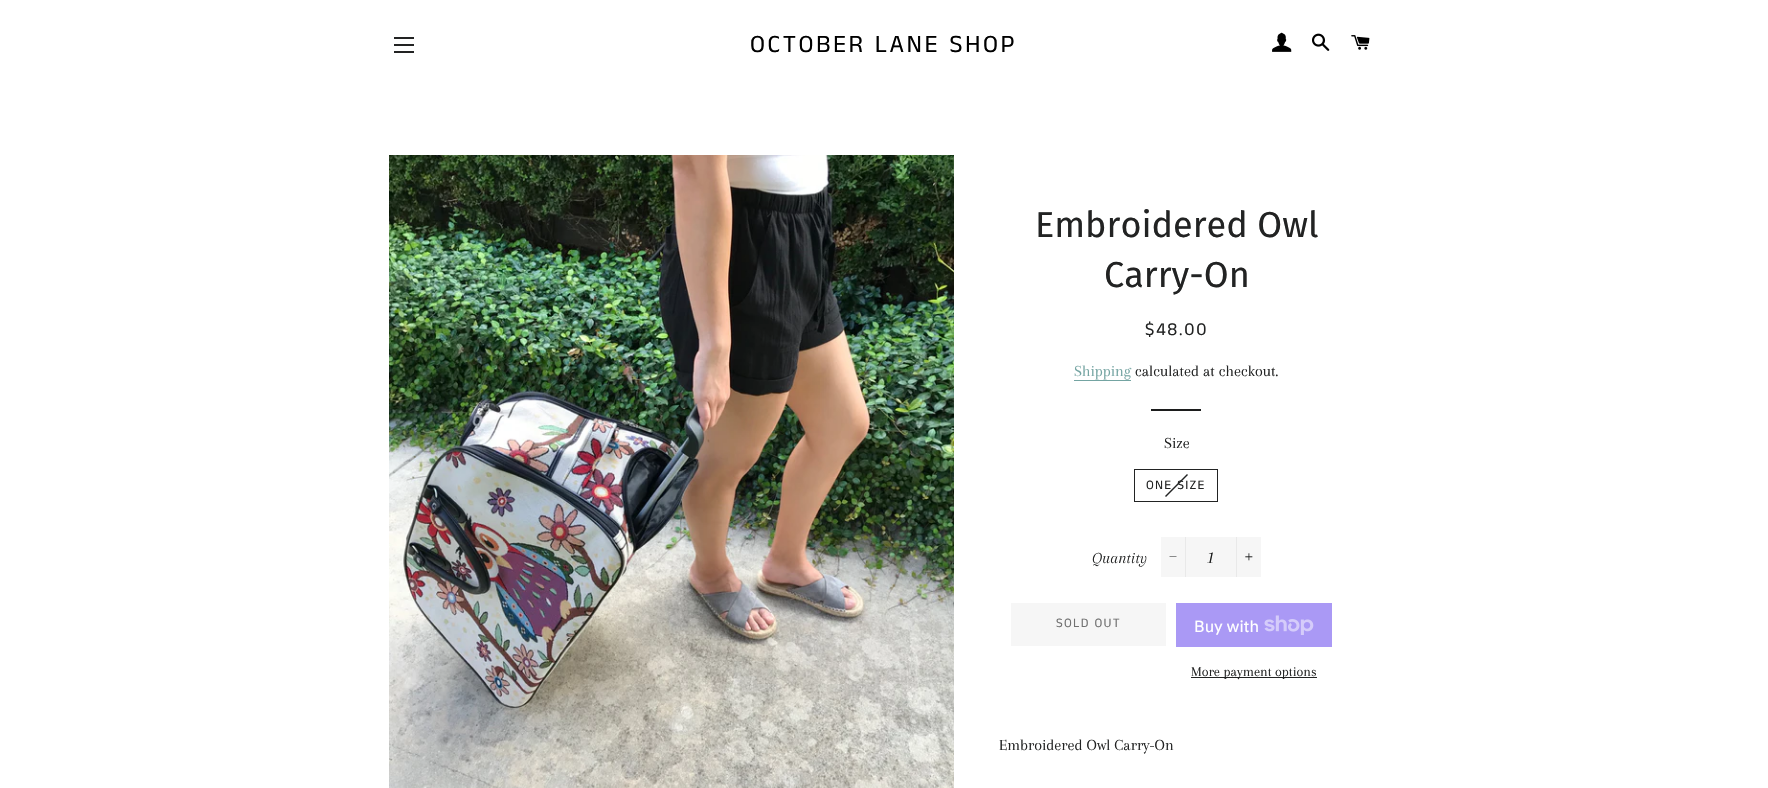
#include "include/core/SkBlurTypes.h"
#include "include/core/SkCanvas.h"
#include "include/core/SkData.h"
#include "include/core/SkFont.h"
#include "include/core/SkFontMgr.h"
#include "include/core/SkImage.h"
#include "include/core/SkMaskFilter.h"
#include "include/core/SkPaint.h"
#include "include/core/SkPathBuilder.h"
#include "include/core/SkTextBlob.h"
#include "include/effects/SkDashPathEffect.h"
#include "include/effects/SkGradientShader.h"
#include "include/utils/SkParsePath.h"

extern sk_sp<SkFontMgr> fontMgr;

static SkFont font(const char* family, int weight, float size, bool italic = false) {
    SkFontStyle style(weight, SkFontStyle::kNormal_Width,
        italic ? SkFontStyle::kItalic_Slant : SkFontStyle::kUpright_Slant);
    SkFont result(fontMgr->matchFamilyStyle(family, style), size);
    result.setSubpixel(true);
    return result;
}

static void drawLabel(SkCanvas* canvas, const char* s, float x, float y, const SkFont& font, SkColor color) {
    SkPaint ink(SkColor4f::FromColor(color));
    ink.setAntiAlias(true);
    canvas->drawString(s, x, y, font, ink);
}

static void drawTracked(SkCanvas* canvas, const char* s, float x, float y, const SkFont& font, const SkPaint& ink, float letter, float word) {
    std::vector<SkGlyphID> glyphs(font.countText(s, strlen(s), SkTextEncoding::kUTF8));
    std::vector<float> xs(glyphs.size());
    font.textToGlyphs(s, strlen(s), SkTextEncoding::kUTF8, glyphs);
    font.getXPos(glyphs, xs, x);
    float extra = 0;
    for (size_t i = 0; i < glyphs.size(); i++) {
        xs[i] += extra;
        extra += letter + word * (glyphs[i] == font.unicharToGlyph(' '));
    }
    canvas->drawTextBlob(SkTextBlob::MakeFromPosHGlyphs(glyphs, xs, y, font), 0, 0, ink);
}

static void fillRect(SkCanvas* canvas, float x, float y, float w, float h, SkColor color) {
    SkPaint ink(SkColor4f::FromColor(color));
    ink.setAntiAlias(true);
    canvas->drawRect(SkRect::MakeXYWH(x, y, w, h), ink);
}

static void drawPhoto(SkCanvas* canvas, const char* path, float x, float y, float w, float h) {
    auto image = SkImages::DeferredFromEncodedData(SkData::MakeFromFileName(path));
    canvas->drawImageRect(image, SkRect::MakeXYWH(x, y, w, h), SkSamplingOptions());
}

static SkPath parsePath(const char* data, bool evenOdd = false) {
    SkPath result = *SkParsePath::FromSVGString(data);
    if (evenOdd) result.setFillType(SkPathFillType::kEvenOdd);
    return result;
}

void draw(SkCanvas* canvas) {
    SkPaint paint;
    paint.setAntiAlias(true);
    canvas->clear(0xFFFFFFFF);
    fillRect(canvas, 394, 37, 20, 2, 0xFF222323);
    fillRect(canvas, 394, 44, 20, 2, 0xFF222323);
    fillRect(canvas, 394, 51, 20, 2, 0xFF222323);
    SkFont font1 = font("Anek Tamil", 400, 25);
    paint.setColor(0xFF000000);
    drawTracked(canvas, "OCTOBER LANE SHOP", 750, 52, font1, paint, 2.5f, 0);
    drawPhoto(canvas, "assets/img1.png", 1272, 32, 20, 20);
    drawPhoto(canvas, "assets/img2.png", 1312, 33, 18, 18);
    drawPhoto(canvas, "assets/img3.png", 1351, 35, 19, 15);
    drawPhoto(canvas, "assets/img4.png", 389, 155, 565, 633);
    SkFont font2 = font("Fira Sans", 400, 36);
    drawLabel(canvas, "Embroidered Owl", 1035, 237, font2, 0xFF222323);
    drawLabel(canvas, "Carry-On", 1104, 287, font2, 0xFF222323);
    SkFont font3 = font("Anek Tamil", 400, 18);
    paint.setColor(0xFF222323);
    drawTracked(canvas, "$48.00", 1145, 335, font3, paint, 1.75f, 0);
    SkFont font4 = font("Arapey", 400, 16);
    drawLabel(canvas, "Shipping", 1074, 376, font4, 0xFF74A4A2);
    fillRect(canvas, 1074, 380, 57, 1, 0xFF74A4A2);
    drawLabel(canvas, "calculated at checkout.", 1135, 376, font4, 0xFF222323);
    fillRect(canvas, 1151, 409, 50, 2, 0xFF1C1D1D);
    drawLabel(canvas, "Size", 1164, 448, font4, 0xFF222323);
    paint.setStroke(true);
    paint.setStrokeWidth(1);
    canvas->drawRect(SkRect::MakeXYWH(1134.5f, 469.5f, 83, 32), paint);
    paint.setStroke(false);
    canvas->drawPath(parsePath("M1187 474L1188 475L1166 497L1165 496Z"), paint);
    SkFont font5 = font("Anek Tamil", 400, 13);
    drawTracked(canvas, "ONE SIZE", 1146, 489, font5, paint, 1.25f, 0);
    SkFont font6 = font("Arapey", 400, 16, true);
    drawLabel(canvas, "Quantity", 1092, 563, font6, 0xFF222323);
    fillRect(canvas, 1161, 537, 100, 40, 0xFFF6F6F6);
    fillRect(canvas, 1185, 537, 1, 40, 0xFFE9E9E9);
    paint.setColor(0xFF1C1D1D);
    canvas->drawPath(parsePath("M1169.5 556.5H1176.5V557H1169.5Z"), paint);
    SkFont font7 = font("Arapey", 400, 18, true);
    drawLabel(canvas, "1", 1208, 563, font7, 0xFF1C1D1D);
    fillRect(canvas, 1236, 537, 1, 40, 0xFFE9E9E9);
    drawPhoto(canvas, "assets/img5.png", 1245, 553, 8, 8);
    fillRect(canvas, 1011, 603, 155, 43, 0xFFF6F6F6);
    paint.setColor(0xFF717171);
    drawTracked(canvas, "SOLD OUT", 1056, 627, font5, paint, 1.25f, 0);
    fillRect(canvas, 1176, 603, 156, 44, 0xFFAA99F5);
    SkFont font8 = font("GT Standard", 400, 16);
    drawLabel(canvas, "Buy with", 1194, 632, font8, 0xFFFFFFFF);
    drawPhoto(canvas, "assets/img6.png", 1264, 615, 50, 20);
    fillRect(canvas, 1191, 677, 126, 1, 0xFF222323);
    SkFont font9 = font("Arapey", 400, 14);
    drawLabel(canvas, "More payment options", 1191, 676, font9, 0xFF222323);
    drawLabel(canvas, "Embroidered Owl Carry-On", 999, 750, font4, 0xFF222323);
}
